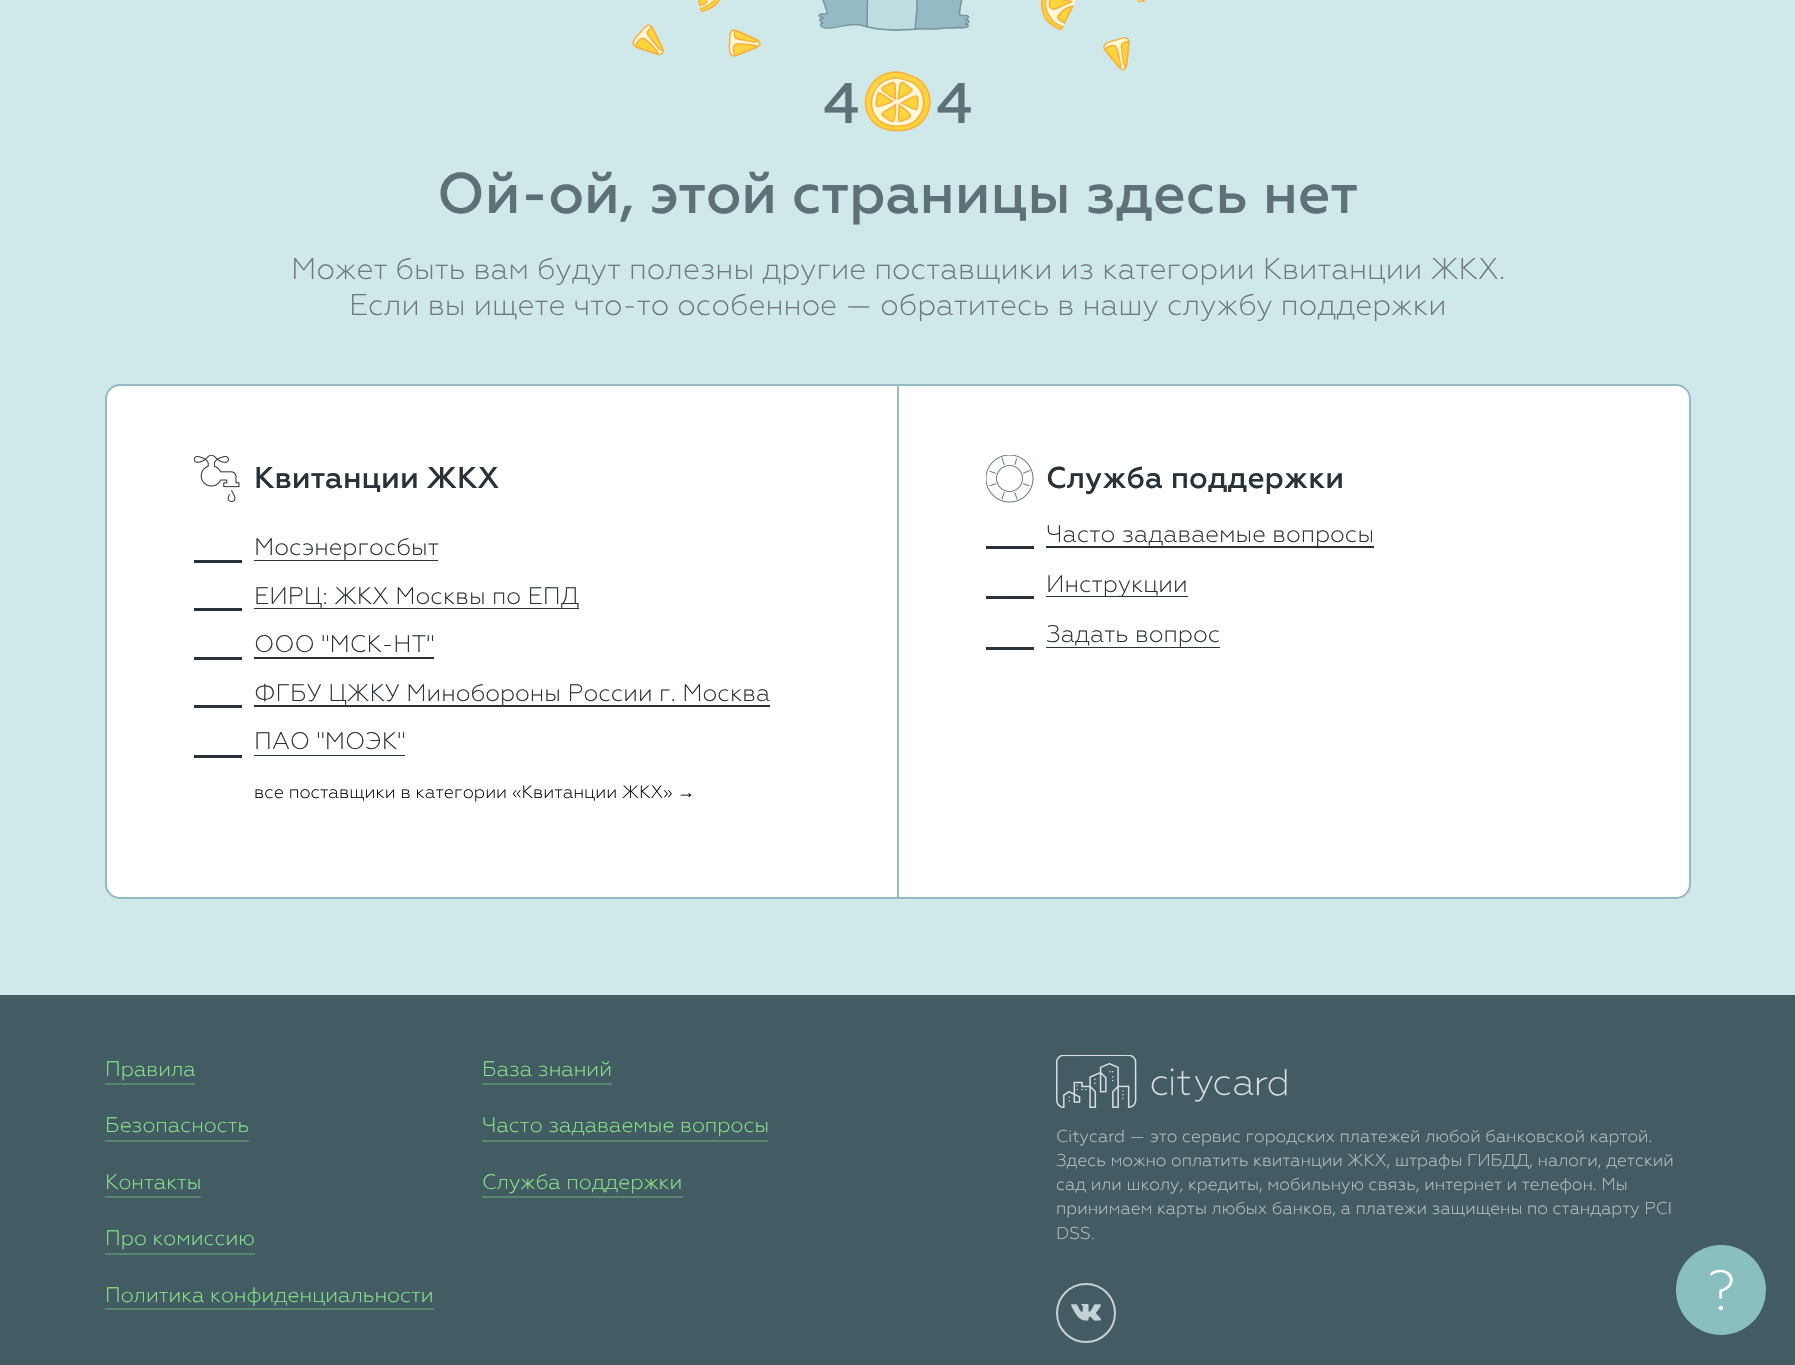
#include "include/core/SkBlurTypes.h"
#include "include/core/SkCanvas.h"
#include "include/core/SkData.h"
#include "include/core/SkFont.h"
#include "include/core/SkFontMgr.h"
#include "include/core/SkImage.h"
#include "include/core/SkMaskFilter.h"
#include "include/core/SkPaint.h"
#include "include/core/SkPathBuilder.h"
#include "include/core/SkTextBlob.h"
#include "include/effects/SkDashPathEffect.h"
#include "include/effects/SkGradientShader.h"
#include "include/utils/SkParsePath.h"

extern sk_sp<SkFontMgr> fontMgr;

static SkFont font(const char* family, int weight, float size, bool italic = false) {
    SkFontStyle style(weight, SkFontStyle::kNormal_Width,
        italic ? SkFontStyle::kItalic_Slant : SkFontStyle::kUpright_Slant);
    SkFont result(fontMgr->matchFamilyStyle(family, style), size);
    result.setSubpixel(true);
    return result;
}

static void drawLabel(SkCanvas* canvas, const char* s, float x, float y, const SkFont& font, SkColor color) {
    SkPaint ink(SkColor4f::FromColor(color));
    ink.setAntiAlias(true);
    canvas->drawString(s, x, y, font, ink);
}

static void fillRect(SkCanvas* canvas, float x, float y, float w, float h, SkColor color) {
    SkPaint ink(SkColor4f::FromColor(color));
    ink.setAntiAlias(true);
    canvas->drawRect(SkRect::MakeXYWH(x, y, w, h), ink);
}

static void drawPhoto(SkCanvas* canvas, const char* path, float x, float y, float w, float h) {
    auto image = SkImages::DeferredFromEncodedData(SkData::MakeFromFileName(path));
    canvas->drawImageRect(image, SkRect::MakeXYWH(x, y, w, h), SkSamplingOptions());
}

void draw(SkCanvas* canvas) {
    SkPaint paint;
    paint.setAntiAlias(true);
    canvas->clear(0xFFCFE8EA);
    drawPhoto(canvas, "assets/img1.png", 632, 0, 514, 71);
    SkFont font1 = font("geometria", 500, 57);
    drawLabel(canvas, "4", 823, 123, font1, 0xFF5E7177);
    drawPhoto(canvas, "assets/img2.png", 864, 71, 67, 61);
    drawLabel(canvas, "4", 936, 123, font1, 0xFF5E7177);
    drawLabel(canvas, "Ой-ой, этой страницы здесь нет", 437, 213, font1, 0xFF5E7177);
    SkFont font2 = font("geometria", 300, 30);
    drawLabel(canvas, "Может быть вам будут полезны другие поставщики из категории Квитанции ЖКХ.", 291, 279, font2, 0xFF6D7879);
    drawLabel(canvas, "Если вы ищете что-то особенное — обратитесь в нашу службу поддержки", 349, 315, font2, 0xFF6D7879);
    paint.setColor(0xFFFFFFFF);
    canvas->drawRoundRect(SkRect::MakeXYWH(106, 385, 1584, 513), 14, 14, paint);
    paint.setStroke(true);
    paint.setStrokeWidth(2);
    paint.setColor(0xFF94BAC5);
    canvas->drawRoundRect(SkRect::MakeXYWH(106, 385, 1584, 513), 14, 14, paint);
    drawPhoto(canvas, "assets/img3.png", 194, 455, 46, 48);
    SkFont font3 = font("geometria", 500, 30);
    drawLabel(canvas, "Квитанции ЖКХ", 254, 488, font3, 0xFF283238);
    SkFont font4 = font("geometria", 300, 24);
    drawLabel(canvas, "Мосэнергосбыт", 254, 555, font4, 0xFF283238);
    fillRect(canvas, 194, 560, 48, 3, 0xFF283238);
    fillRect(canvas, 254, 560, 184, 1, 0xFF283238);
    drawLabel(canvas, "ЕИРЦ: ЖКХ Москвы по ЕПД", 254, 604, font4, 0xFF283238);
    fillRect(canvas, 194, 608, 48, 3, 0xFF283238);
    fillRect(canvas, 254, 608, 325, 1, 0xFF283238);
    drawLabel(canvas, "ООО \"МСК-НТ\"", 254, 652, font4, 0xFF283238);
    fillRect(canvas, 194, 657, 48, 3, 0xFF283238);
    fillRect(canvas, 254, 657, 180, 2, 0xFF283238);
    fillRect(canvas, 254, 705, 516, 2, 0xFF283238);
    drawLabel(canvas, "ФГБУ ЦЖКУ Минобороны России г. Москва", 254, 701, font4, 0xFF283238);
    fillRect(canvas, 194, 705, 48, 3, 0xFF283238);
    drawLabel(canvas, "ПАО \"МОЭК\"", 254, 749, font4, 0xFF283238);
    fillRect(canvas, 194, 755, 48, 3, 0xFF283238);
    fillRect(canvas, 254, 755, 151, 1, 0xFF283238);
    SkFont font5 = font("geometria", 300, 18);
    drawLabel(canvas, "все поставщики в категории «Квитанции ЖКХ»", 254, 798, font5, 0xFF000000);
    SkFont font6 = font("Liberation Sans", 400, 18);
    drawLabel(canvas, "→", 677, 798, font6, 0xFF000000);
    fillRect(canvas, 897, 386, 2, 511, 0xFF94BAC5);
    drawPhoto(canvas, "assets/img4.png", 986, 455, 48, 48);
    drawLabel(canvas, "Служба поддержки", 1046, 488, font3, 0xFF283238);
    fillRect(canvas, 1046, 546, 328, 2, 0xFF283238);
    drawLabel(canvas, "Часто задаваемые вопросы", 1046, 542, font4, 0xFF283238);
    fillRect(canvas, 986, 546, 48, 3, 0xFF283238);
    fillRect(canvas, 1046, 596, 142, 1, 0xFF283238);
    drawLabel(canvas, "Инструкции", 1046, 592, font4, 0xFF283238);
    fillRect(canvas, 986, 596, 48, 3, 0xFF283238);
    drawLabel(canvas, "Задать вопрос", 1046, 642, font4, 0xFF283238);
    fillRect(canvas, 986, 647, 48, 3, 0xFF283238);
    fillRect(canvas, 1046, 647, 174, 1, 0xFF283238);
    fillRect(canvas, 0, 995, 1795, 370, 0xFF435B63);
    fillRect(canvas, 105, 1083, 90, 2, 0xFF58876E);
    SkFont font7 = font("geometria", 300, 21);
    drawLabel(canvas, "Правила", 105, 1076, font7, 0xFF88EC88);
    fillRect(canvas, 105, 1140, 144, 2, 0xFF58876E);
    drawLabel(canvas, "Безопасность", 105, 1132, font7, 0xFF88EC88);
    fillRect(canvas, 105, 1196, 96, 2, 0xFF58876E);
    drawLabel(canvas, "Контакты", 105, 1189, font7, 0xFF88EC88);
    fillRect(canvas, 105, 1253, 150, 2, 0xFF58876E);
    drawLabel(canvas, "Про комиссию", 105, 1245, font7, 0xFF88EC88);
    fillRect(canvas, 105, 1308, 329, 2, 0xFF58876E);
    drawLabel(canvas, "Политика конфиденциальности", 105, 1302, font7, 0xFF88EC88);
    fillRect(canvas, 482, 1083, 130, 2, 0xFF58876E);
    drawLabel(canvas, "База знаний", 482, 1076, font7, 0xFF88EC88);
    fillRect(canvas, 482, 1140, 286, 2, 0xFF58876E);
    drawLabel(canvas, "Часто задаваемые вопросы", 482, 1132, font7, 0xFF88EC88);
    fillRect(canvas, 482, 1196, 201, 2, 0xFF58876E);
    drawLabel(canvas, "Служба поддержки", 482, 1189, font7, 0xFF88EC88);
    drawPhoto(canvas, "assets/img5.png", 1056, 1055, 231, 53);
    SkFont font8 = font("geometria", 300, 17.25f);
    drawLabel(canvas, "Citycard — это сервис городских платежей любой банковской картой.", 1056, 1142, font8, 0xFFBBC4C7);
    drawLabel(canvas, "Здесь можно оплатить квитанции ЖКХ, штрафы ГИБДД, налоги, детский", 1056, 1166, font8, 0xFFBBC4C7);
    drawLabel(canvas, "сад или школу, кредиты, мобильную связь, интернет и телефон. Мы", 1056, 1190, font8, 0xFFBBC4C7);
    drawLabel(canvas, "принимаем карты любых банков, а платежи защищены по стандарту PCI", 1056, 1214, font8, 0xFFBBC4C7);
    drawLabel(canvas, "DSS.", 1056, 1239, font8, 0xFFBBC4C7);
    paint.setColor(0xFFC2D2D5);
    canvas->drawCircle(1086, 1313, 29, paint);
    drawPhoto(canvas, "assets/img6.png", 1071, 1304, 30, 17);
    paint.setStroke(false);
    paint.setColor(0xFF89BFBF);
    canvas->drawCircle(1721, 1290, 45, paint);
    SkFont font9 = font("geometria", 300, 57);
    drawLabel(canvas, "?", 1709, 1310, font9, 0xFFFFFFFF);
}
